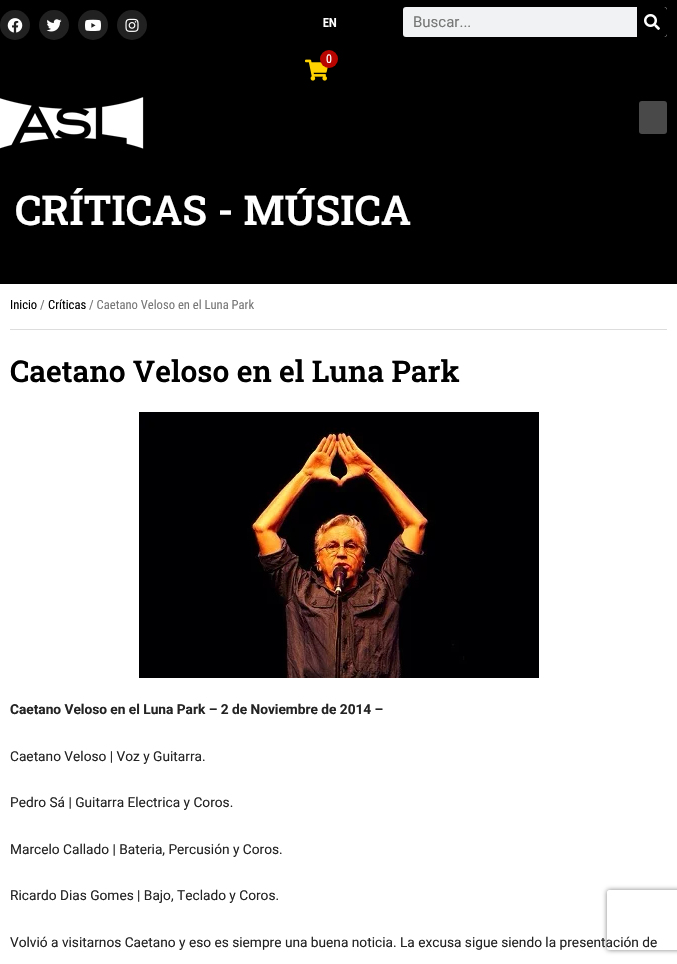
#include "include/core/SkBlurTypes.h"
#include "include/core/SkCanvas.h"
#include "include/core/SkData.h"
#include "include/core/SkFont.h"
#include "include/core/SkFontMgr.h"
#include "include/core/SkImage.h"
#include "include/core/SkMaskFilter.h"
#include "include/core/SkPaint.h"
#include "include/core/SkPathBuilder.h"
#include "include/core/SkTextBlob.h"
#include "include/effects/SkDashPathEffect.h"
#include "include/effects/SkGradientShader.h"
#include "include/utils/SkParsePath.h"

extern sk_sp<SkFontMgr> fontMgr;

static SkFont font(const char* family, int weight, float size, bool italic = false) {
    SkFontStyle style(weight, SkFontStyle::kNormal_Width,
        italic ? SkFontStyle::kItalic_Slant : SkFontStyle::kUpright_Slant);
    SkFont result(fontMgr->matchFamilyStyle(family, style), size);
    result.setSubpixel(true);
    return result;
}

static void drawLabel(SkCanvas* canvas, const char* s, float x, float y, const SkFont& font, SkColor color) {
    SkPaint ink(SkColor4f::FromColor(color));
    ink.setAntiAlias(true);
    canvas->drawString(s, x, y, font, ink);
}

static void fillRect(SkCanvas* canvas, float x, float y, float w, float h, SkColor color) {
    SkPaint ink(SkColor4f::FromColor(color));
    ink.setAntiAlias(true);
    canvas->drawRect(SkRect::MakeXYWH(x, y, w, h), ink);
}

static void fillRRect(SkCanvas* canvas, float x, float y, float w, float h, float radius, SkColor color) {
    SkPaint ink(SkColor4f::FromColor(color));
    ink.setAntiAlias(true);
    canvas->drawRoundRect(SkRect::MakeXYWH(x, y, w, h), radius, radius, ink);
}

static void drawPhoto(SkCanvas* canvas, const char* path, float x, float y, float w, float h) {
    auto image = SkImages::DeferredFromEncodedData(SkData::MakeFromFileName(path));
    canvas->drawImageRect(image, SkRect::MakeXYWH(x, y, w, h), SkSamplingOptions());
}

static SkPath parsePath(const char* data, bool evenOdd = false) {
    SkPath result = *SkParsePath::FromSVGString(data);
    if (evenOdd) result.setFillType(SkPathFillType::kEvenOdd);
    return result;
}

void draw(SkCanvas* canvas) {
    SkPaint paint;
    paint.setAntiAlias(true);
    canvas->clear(0xFFFFFFFF);
    fillRect(canvas, 0, 0, 677, 284, 0xFF000000);
    paint.setColor(0xFF212121);
    canvas->drawCircle(15, 25, 15, paint);
    drawPhoto(canvas, "assets/img1.png", 7, 18, 16, 15);
    canvas->drawCircle(54, 25, 15, paint);
    drawPhoto(canvas, "assets/img2.png", 46, 19, 16, 13);
    canvas->drawCircle(93, 25, 15, paint);
    drawPhoto(canvas, "assets/img3.png", 85, 19, 16, 12);
    canvas->drawCircle(132, 25, 15, paint);
    drawPhoto(canvas, "assets/img4.png", 125, 18, 14, 14);
    drawPhoto(canvas, "assets/img5.png", 323, 18, 14, 9);
    fillRRect(canvas, 403, 7, 264, 30, 3, 0xFFF1F2F3);
    SkFont font1 = font("Roboto", 400, 15);
    drawLabel(canvas, "Buscar...", 413, 27, font1, 0xFF777777);
    paint.setColor(0xFF000000);
    canvas->drawPath(parsePath("M637 7H664C665.5 7 667 8.5 667 10V34C667 35.5 665.5 37 664 37H637Z"), paint);
    drawPhoto(canvas, "assets/img6.png", 644, 14, 16, 16);
    drawPhoto(canvas, "assets/img7.png", 305, 59, 23, 22);
    paint.setColor(0xFFB90500);
    canvas->drawCircle(329, 59, 9, paint);
    SkFont font2 = font("Roboto Condensed", 400, 12);
    drawLabel(canvas, "0", 326, 63, font2, 0xFFFFFFFF);
    drawPhoto(canvas, "assets/img8.png", 0, 97, 144, 52);
    fillRRect(canvas, 639, 101, 28, 33, 3, 0xFF494949);
    SkFont font3 = font("Roboto Slab", 600, 41);
    drawLabel(canvas, "CRÍTICAS - MÚSICA", 15, 225, font3, 0xFFFFFFFF);
    fillRect(canvas, 10, 329, 657, 1, 0xFFDDDDDD);
    SkFont font4 = font("Roboto Condensed", 400, 12.6f);
    drawLabel(canvas, "Inicio", 10, 309, font4, 0xFF000000);
    drawLabel(canvas, "/", 40, 309, font4, 0xFF777777);
    drawLabel(canvas, "Críticas", 48, 309, font4, 0xFF000000);
    drawLabel(canvas, "/ Caetano Veloso en el Luna Park", 89, 309, font4, 0xFF777777);
    SkFont font5 = font("Roboto Slab", 600, 30);
    drawLabel(canvas, "Caetano Veloso en el Luna Park", 10, 382, font5, 0xFF000000);
    drawPhoto(canvas, "assets/img9.png", 139, 412, 400, 266);
    SkFont font6 = font("Roboto", 700, 13.7f);
    drawLabel(canvas, "Caetano Veloso en el Luna Park – 2 de Noviembre de 2014 –", 10, 714, font6, 0xFF242424);
    SkFont font7 = font("Roboto", 400, 13.7f);
    drawLabel(canvas, "Caetano Veloso | Voz y Guitarra.", 10, 761, font7, 0xFF242424);
    drawLabel(canvas, "Pedro Sá | Guitarra Electrica y Coros.", 10, 807, font7, 0xFF242424);
    drawLabel(canvas, "Marcelo Callado | Bateria, Percusión y Coros.", 10, 854, font7, 0xFF242424);
    drawLabel(canvas, "Ricardo Dias Gomes | Bajo, Teclado y Coros.", 10, 900, font7, 0xFF242424);
    drawLabel(canvas, "Volvió a visitarnos Caetano y eso es siempre una buena noticia. La excusa sigue siendo la presentación de", 10, 947, font7, 0xFF242424);
    canvas->save();
    canvas->clipPath(parsePath("M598 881H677V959H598ZM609 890H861C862 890 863 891 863 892V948C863 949 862 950 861 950H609C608 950 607 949 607 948V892C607 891 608 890 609 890Z", true), true);
    paint.setColor(0xFF808080);
    paint.setMaskFilter(SkMaskFilter::MakeBlur(kNormal_SkBlurStyle, 2.5f));
    canvas->drawRoundRect(SkRect::MakeXYWH(607, 890, 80, 60), 2, 2, paint);
    paint.setMaskFilter(nullptr);
    canvas->restore();
}
